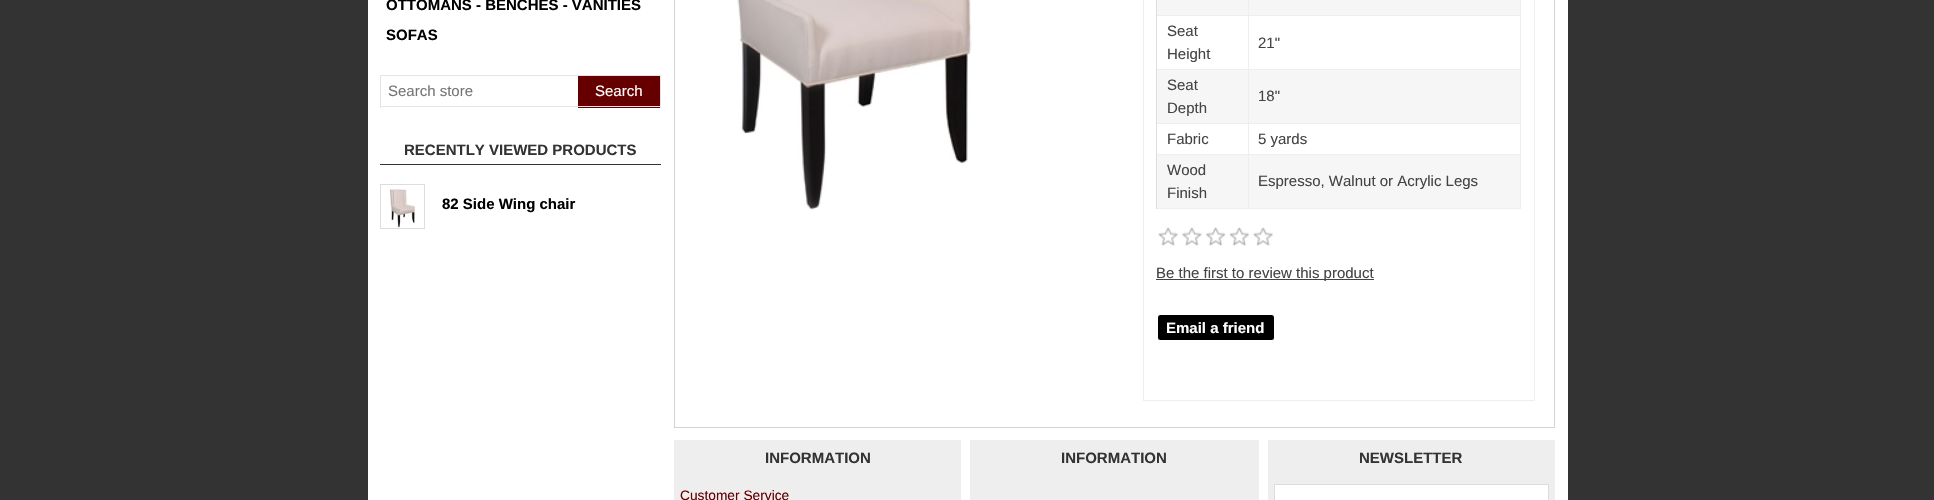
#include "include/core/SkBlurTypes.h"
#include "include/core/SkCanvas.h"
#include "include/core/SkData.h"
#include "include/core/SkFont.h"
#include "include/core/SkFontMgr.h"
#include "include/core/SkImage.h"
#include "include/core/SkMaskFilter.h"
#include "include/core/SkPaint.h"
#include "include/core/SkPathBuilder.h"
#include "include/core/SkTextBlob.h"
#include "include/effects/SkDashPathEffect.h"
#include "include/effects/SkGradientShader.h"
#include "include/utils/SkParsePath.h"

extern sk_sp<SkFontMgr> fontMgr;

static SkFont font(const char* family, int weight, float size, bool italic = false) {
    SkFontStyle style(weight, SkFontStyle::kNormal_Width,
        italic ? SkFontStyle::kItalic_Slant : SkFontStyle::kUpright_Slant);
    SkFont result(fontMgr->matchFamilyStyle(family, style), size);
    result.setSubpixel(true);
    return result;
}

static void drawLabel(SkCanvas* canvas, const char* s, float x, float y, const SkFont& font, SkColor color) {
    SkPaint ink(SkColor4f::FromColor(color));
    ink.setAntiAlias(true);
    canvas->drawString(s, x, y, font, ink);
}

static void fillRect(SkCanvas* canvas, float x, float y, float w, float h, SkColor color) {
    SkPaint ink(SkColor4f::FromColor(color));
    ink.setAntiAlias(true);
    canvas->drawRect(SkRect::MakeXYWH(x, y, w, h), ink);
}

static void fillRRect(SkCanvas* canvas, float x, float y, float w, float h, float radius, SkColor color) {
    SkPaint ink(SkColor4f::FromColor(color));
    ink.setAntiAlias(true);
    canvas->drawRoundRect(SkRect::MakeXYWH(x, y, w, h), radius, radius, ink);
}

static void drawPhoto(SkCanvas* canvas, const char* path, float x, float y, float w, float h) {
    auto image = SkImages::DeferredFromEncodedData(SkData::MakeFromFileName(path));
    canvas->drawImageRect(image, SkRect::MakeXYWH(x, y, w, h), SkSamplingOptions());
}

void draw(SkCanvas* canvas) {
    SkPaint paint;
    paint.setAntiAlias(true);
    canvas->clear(0xFF333333);
    fillRect(canvas, 368, 0, 1200, 500, 0xFFFFFFFF);
    SkFont font1 = font("Liberation Sans", 700, 15);
    drawLabel(canvas, "OTTOMANS - BENCHES - VANITIES", 386, 10, font1, 0xFF000000);
    drawLabel(canvas, "SOFAS", 386, 40, font1, 0xFF000000);
    fillRect(canvas, 380, 75, 281, 1, 0xFFE6E4E5);
    fillRect(canvas, 380, 106, 198, 1, 0xFFE6E4E5);
    fillRect(canvas, 380, 75, 1, 33, 0xFFE6E4E5);
    SkFont font2 = font("Liberation Sans", 400, 15);
    drawLabel(canvas, "Search store", 388, 96, font2, 0xFF757575);
    fillRect(canvas, 578, 76, 82, 32, 0xFF660000);
    fillRect(canvas, 660, 75, 1, 33, 0xFFE6E4E5);
    fillRect(canvas, 578, 106, 83, 1, 0xFFE6E4E5);
    drawLabel(canvas, "Search", 595, 96, font2, 0xFFFFFFFF);
    fillRect(canvas, 380, 164, 281, 1, 0xFF333333);
    drawLabel(canvas, "RECENTLY VIEWED PRODUCTS", 404, 155, font1, 0xFF333333);
    paint.setStroke(true);
    paint.setStrokeWidth(1);
    paint.setColor(0xFFDDDDDD);
    canvas->drawRect(SkRect::MakeXYWH(380.5f, 184.5f, 44, 44), paint);
    drawPhoto(canvas, "assets/img1.png", 389, 189, 26, 39);
    drawLabel(canvas, "82 Side Wing chair", 442, 209, font1, 0xFF000000);
    paint.setColor(0xFFD3D3D3);
    canvas->drawRect(SkRect::MakeXYWH(674.5f, -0.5f, 880, 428), paint);
    drawPhoto(canvas, "assets/img2.png", 737, 0, 235, 210);
    paint.setColor(0xFFEEEEEE);
    canvas->drawRect(SkRect::MakeXYWH(1143.5f, -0.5f, 391, 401), paint);
    fillRect(canvas, 1520, 0, 1, 15, 0xFFEEEEEE);
    fillRect(canvas, 1156, 208, 365, 1, 0xFFEEEEEE);
    fillRect(canvas, 1157, 0, 363, 15, 0xFFF6F6F6);
    fillRect(canvas, 1157, 70, 363, 53, 0xFFF6F6F6);
    fillRect(canvas, 1157, 155, 363, 53, 0xFFF6F6F6);
    fillRect(canvas, 1248, 154, 1, 55, 0xFFEEEEEE);
    fillRect(canvas, 1520, 15, 1, 194, 0xFFEEEEEE);
    fillRect(canvas, 1248, 154, 273, 1, 0xFFEEEEEE);
    fillRect(canvas, 1248, 123, 1, 32, 0xFFEEEEEE);
    fillRect(canvas, 1248, 123, 273, 1, 0xFFEEEEEE);
    fillRect(canvas, 1248, 69, 1, 55, 0xFFEEEEEE);
    fillRect(canvas, 1248, 69, 273, 1, 0xFFEEEEEE);
    fillRect(canvas, 1248, 15, 1, 55, 0xFFEEEEEE);
    fillRect(canvas, 1248, 15, 273, 1, 0xFFEEEEEE);
    fillRect(canvas, 1248, 0, 1, 16, 0xFFEEEEEE);
    fillRect(canvas, 1156, 154, 1, 55, 0xFFDDDDDD);
    fillRect(canvas, 1156, 154, 93, 1, 0xFFEEEEEE);
    fillRect(canvas, 1156, 123, 1, 32, 0xFFDDDDDD);
    fillRect(canvas, 1156, 123, 93, 1, 0xFFEEEEEE);
    fillRect(canvas, 1156, 69, 1, 55, 0xFFDDDDDD);
    fillRect(canvas, 1156, 69, 93, 1, 0xFFEEEEEE);
    fillRect(canvas, 1156, 15, 1, 55, 0xFFDDDDDD);
    fillRect(canvas, 1156, 15, 93, 1, 0xFFEEEEEE);
    fillRect(canvas, 1156, 0, 1, 16, 0xFFDDDDDD);
    drawLabel(canvas, "Seat", 1167, 36, font2, 0xFF444444);
    drawLabel(canvas, "Height", 1167, 59, font2, 0xFF444444);
    drawLabel(canvas, "21\"", 1258, 48, font2, 0xFF444444);
    drawLabel(canvas, "Seat", 1167, 90, font2, 0xFF444444);
    drawLabel(canvas, "Depth", 1167, 113, font2, 0xFF444444);
    drawLabel(canvas, "18\"", 1258, 101, font2, 0xFF444444);
    drawLabel(canvas, "Fabric", 1167, 144, font2, 0xFF444444);
    drawLabel(canvas, "5 yards", 1258, 144, font2, 0xFF444444);
    drawLabel(canvas, "Wood", 1167, 175, font2, 0xFF444444);
    drawLabel(canvas, "Finish", 1167, 198, font2, 0xFF444444);
    drawLabel(canvas, "Espresso, Walnut or Acrylic Legs", 1258, 186, font2, 0xFF444444);
    drawPhoto(canvas, "assets/img3.png", 1158, 227, 115, 19);
    fillRect(canvas, 1156, 279, 218, 1, 0xFF444444);
    drawLabel(canvas, "Be the first to review this product", 1156, 278, font2, 0xFF444444);
    fillRRect(canvas, 1158, 315, 116, 25, 2.5f, 0xFF000000);
    drawLabel(canvas, "Email a friend", 1166, 333, font1, 0xFFFFFFFF);
    fillRect(canvas, 674, 440, 287, 60, 0xFFEEEEEE);
    drawLabel(canvas, "INFORMATION", 765, 463, font1, 0xFF333333);
    SkFont font3 = font("Liberation Sans", 400, 13.75f);
    drawLabel(canvas, "Customer Service", 680, 500, font3, 0xFF660000);
    fillRect(canvas, 970, 440, 289, 60, 0xFFEEEEEE);
    drawLabel(canvas, "INFORMATION", 1061, 463, font1, 0xFF333333);
    fillRect(canvas, 1268, 440, 287, 60, 0xFFEEEEEE);
    drawLabel(canvas, "NEWSLETTER", 1359, 463, font1, 0xFF333333);
    paint.setStroke(false);
    paint.setColor(0xFFFFFFFF);
    canvas->drawRect(SkRect::MakeXYWH(1274.5f, 484.5f, 274, 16), paint);
    paint.setStroke(true);
    paint.setColor(0xFFDDDDDD);
    canvas->drawRect(SkRect::MakeXYWH(1274.5f, 484.5f, 274, 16), paint);
}
